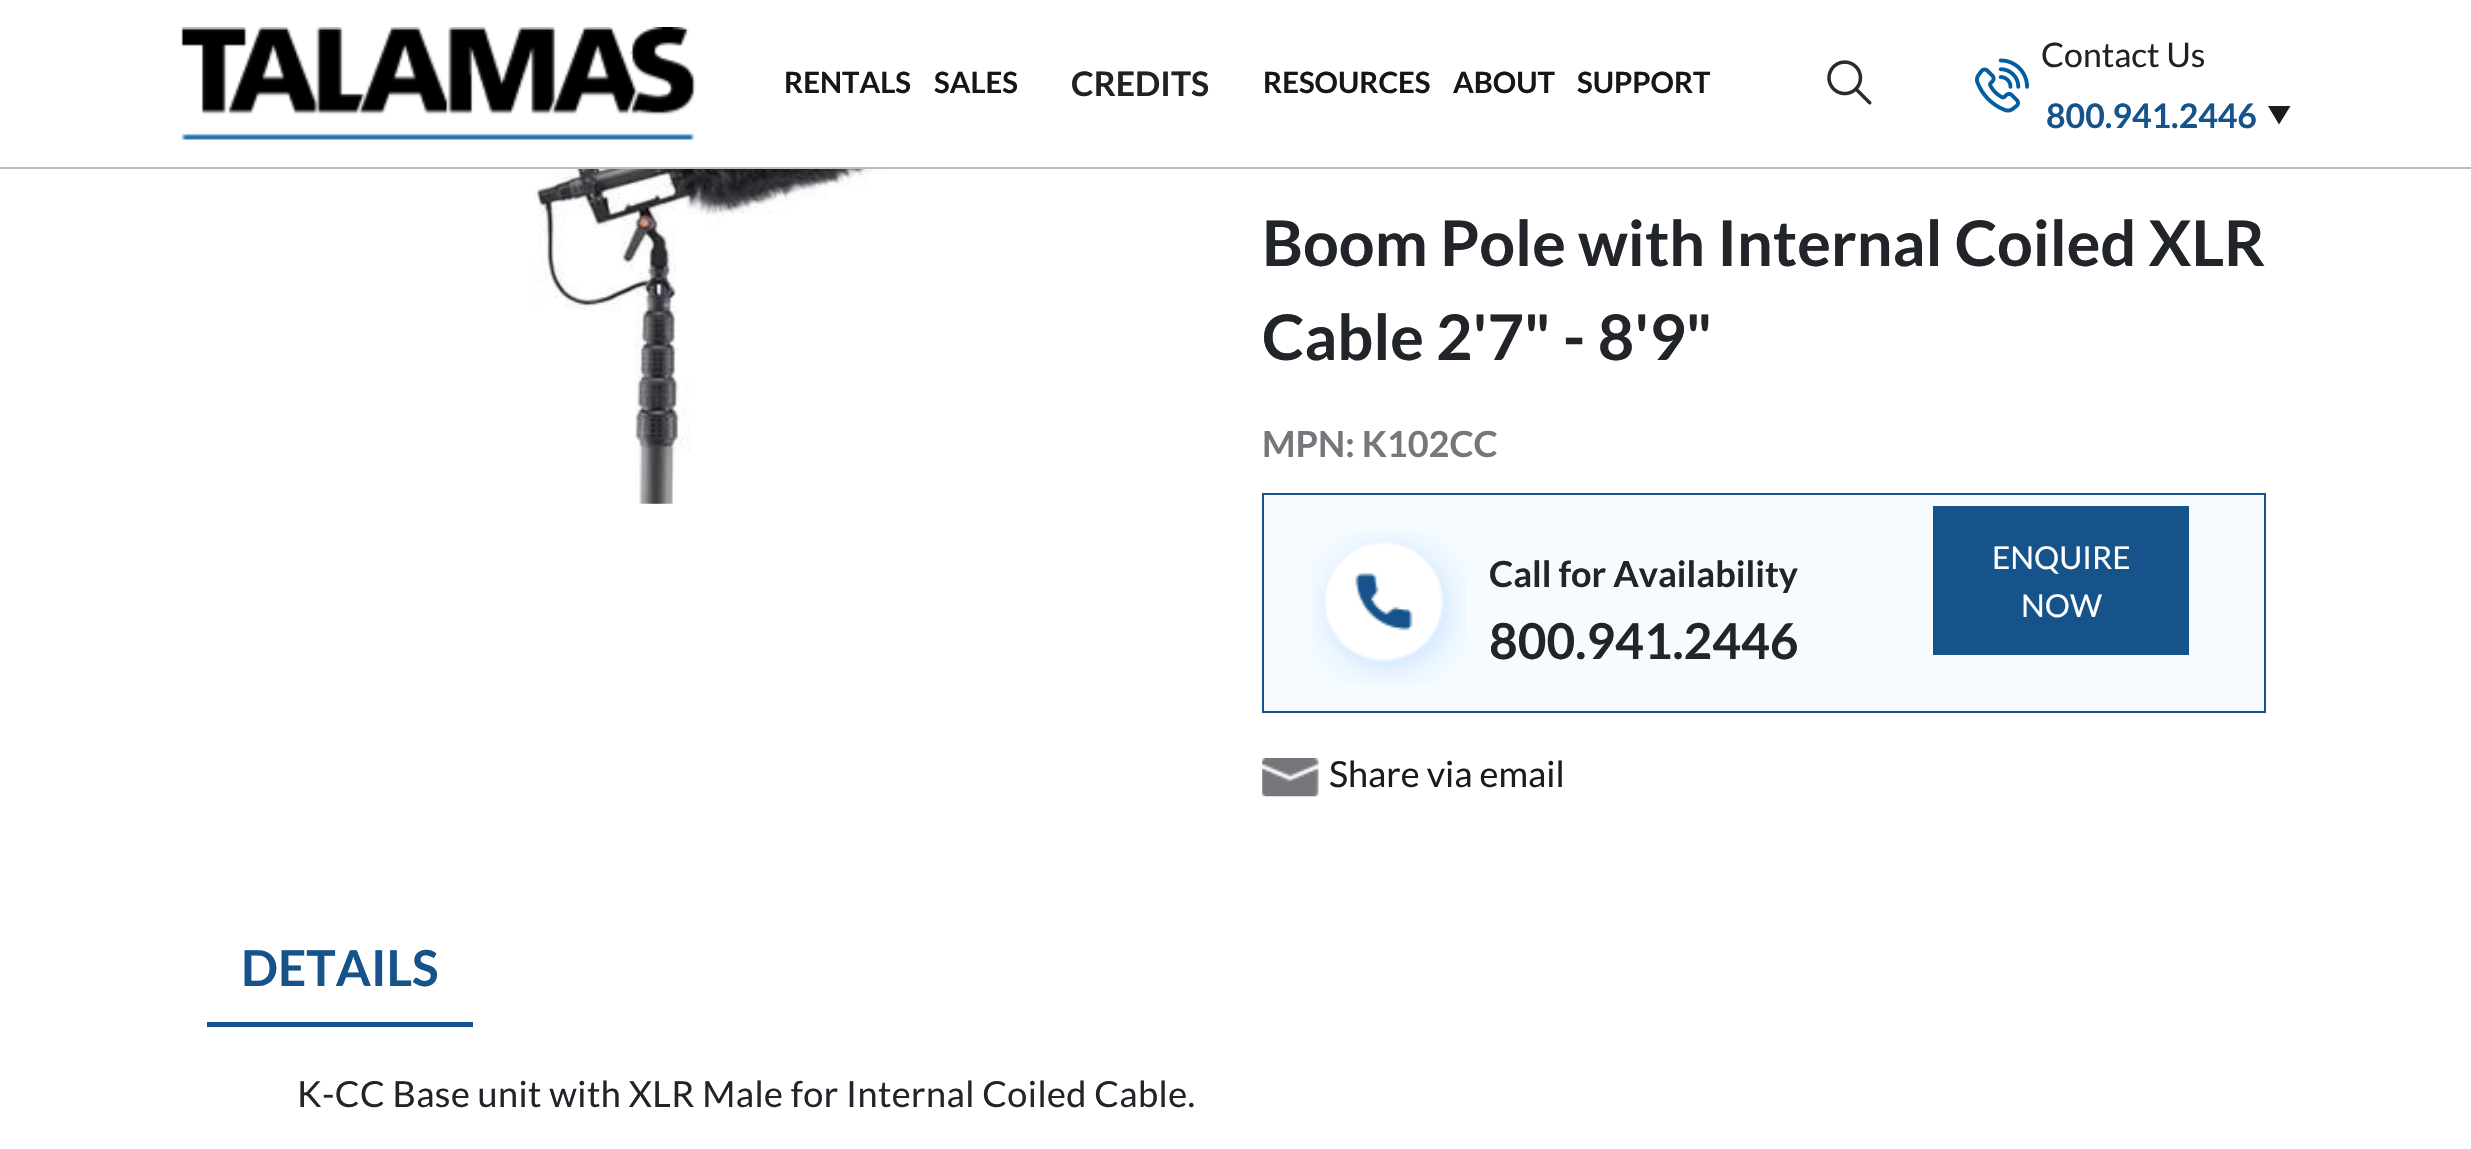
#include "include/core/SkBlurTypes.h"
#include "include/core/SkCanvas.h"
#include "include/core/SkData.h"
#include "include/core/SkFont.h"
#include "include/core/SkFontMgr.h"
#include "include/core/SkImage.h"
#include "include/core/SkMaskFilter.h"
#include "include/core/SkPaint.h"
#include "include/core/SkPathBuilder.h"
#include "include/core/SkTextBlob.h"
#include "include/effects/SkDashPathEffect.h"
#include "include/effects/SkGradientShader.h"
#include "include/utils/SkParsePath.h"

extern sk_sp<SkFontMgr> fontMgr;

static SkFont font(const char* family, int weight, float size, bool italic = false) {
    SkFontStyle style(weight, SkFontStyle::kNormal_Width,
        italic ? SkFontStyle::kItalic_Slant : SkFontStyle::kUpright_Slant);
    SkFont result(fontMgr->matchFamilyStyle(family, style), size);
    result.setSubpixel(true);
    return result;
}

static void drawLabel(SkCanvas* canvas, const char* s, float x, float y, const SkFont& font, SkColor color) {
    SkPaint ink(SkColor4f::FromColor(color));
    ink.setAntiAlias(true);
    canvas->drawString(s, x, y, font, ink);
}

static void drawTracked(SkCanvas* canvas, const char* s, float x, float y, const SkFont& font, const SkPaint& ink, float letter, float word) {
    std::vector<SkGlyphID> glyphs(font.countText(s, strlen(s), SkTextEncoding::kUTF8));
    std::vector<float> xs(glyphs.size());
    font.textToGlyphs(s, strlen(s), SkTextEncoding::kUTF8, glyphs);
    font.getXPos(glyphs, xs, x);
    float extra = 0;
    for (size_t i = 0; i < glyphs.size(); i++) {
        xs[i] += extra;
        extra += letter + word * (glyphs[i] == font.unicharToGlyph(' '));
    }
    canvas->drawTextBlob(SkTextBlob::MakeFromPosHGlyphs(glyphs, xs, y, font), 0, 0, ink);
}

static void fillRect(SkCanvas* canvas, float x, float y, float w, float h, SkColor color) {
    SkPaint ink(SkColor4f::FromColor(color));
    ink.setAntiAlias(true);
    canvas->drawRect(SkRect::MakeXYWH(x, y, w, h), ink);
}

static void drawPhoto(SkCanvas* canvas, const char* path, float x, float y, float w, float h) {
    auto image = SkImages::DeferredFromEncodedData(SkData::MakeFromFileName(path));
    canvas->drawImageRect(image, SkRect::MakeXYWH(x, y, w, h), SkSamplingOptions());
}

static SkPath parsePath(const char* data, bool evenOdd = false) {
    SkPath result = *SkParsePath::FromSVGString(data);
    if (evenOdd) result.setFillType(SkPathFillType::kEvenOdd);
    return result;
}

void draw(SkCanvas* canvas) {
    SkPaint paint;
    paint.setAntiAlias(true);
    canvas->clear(0xFFFFFFFF);
    fillRect(canvas, 0, 167, 2471, 2, 0xFFBCBCBC);
    drawPhoto(canvas, "assets/img1.png", 181, 27, 515, 113);
    SkFont font1 = font("Lato", 700, 29.25f);
    drawLabel(canvas, "RENTALS", 784, 93, font1, 0xFF161616);
    drawLabel(canvas, "SALES", 934, 93, font1, 0xFF161616);
    SkFont font2 = font("Lato", 700, 33.75f);
    drawLabel(canvas, "CREDITS", 1071, 96, font2, 0xFF222222);
    drawLabel(canvas, "RESOURCES", 1263, 93, font1, 0xFF161616);
    drawLabel(canvas, "ABOUT", 1453, 93, font1, 0xFF161616);
    drawLabel(canvas, "SUPPORT", 1577, 93, font1, 0xFF161616);
    drawPhoto(canvas, "assets/img2.png", 1827, 60, 45, 45);
    SkFont font3 = font("Lato", 400, 33.75f);
    drawLabel(canvas, "Contact Us", 2041, 67, font3, 0xFF222222);
    drawPhoto(canvas, "assets/img3.png", 1975, 58, 54, 55);
    drawLabel(canvas, "800.941.2446", 2046, 128, font2, 0xFF16538A);
    paint.setColor(0xFF1C1C1F);
    canvas->drawPath(parsePath("M2279 124.5L2268 106H2290.5Z"), paint);
    drawPhoto(canvas, "assets/img4.png", 534, 169, 377, 335);
    SkFont font4 = font("Lato", 700, 63);
    drawLabel(canvas, "Boom Pole with Internal Coiled XLR", 1262, 266, font4, 0xFF212529);
    drawLabel(canvas, "Cable 2'7\" - 8'9\"", 1262, 360, font4, 0xFF212529);
    SkFont font5 = font("Lato", 700, 36);
    drawLabel(canvas, "MPN: K102CC", 1262, 457, font5, 0xFF79767B);
    paint.setColor(0xFFF5FBFF);
    canvas->drawRect(SkRect::MakeXYWH(1263, 494, 1002, 218), paint);
    paint.setStroke(true);
    paint.setStrokeWidth(2);
    paint.setColor(0xFF16538A);
    canvas->drawRect(SkRect::MakeXYWH(1263, 494, 1002, 218), paint);
    drawPhoto(canvas, "assets/img5.png", 1312, 531, 154, 154);
    drawLabel(canvas, "Call for Availability", 1489, 587, font5, 0xFF212529);
    SkFont font6 = font("Lato", 700, 49.5f);
    drawLabel(canvas, "800.941.2446", 1489, 659, font6, 0xFF212529);
    fillRect(canvas, 1933, 506, 256, 149, 0xFF16538A);
    SkFont font7 = font("Lato", 400, 31.5f);
    drawLabel(canvas, "ENQUIRE", 1992, 569, font7, 0xFFFFFFFF);
    drawLabel(canvas, "NOW", 2021, 617, font7, 0xFFFFFFFF);
    drawPhoto(canvas, "assets/img6.png", 1262, 758, 57, 39);
    SkFont font8 = font("Lato", 400, 36);
    drawLabel(canvas, "Share via email", 1329, 787, font8, 0xFF1C1C1F);
    fillRect(canvas, 207, 1022, 266, 5, 0xFF16538A);
    drawLabel(canvas, "DETAILS", 241, 986, font6, 0xFF16538A);
    paint.setStroke(false);
    paint.setColor(0xFF212529);
    drawTracked(canvas, "K-CC Base unit with XLR Male for Internal Coiled Cable.", 297, 1107, font8, paint, 0.43f, 0);
}
